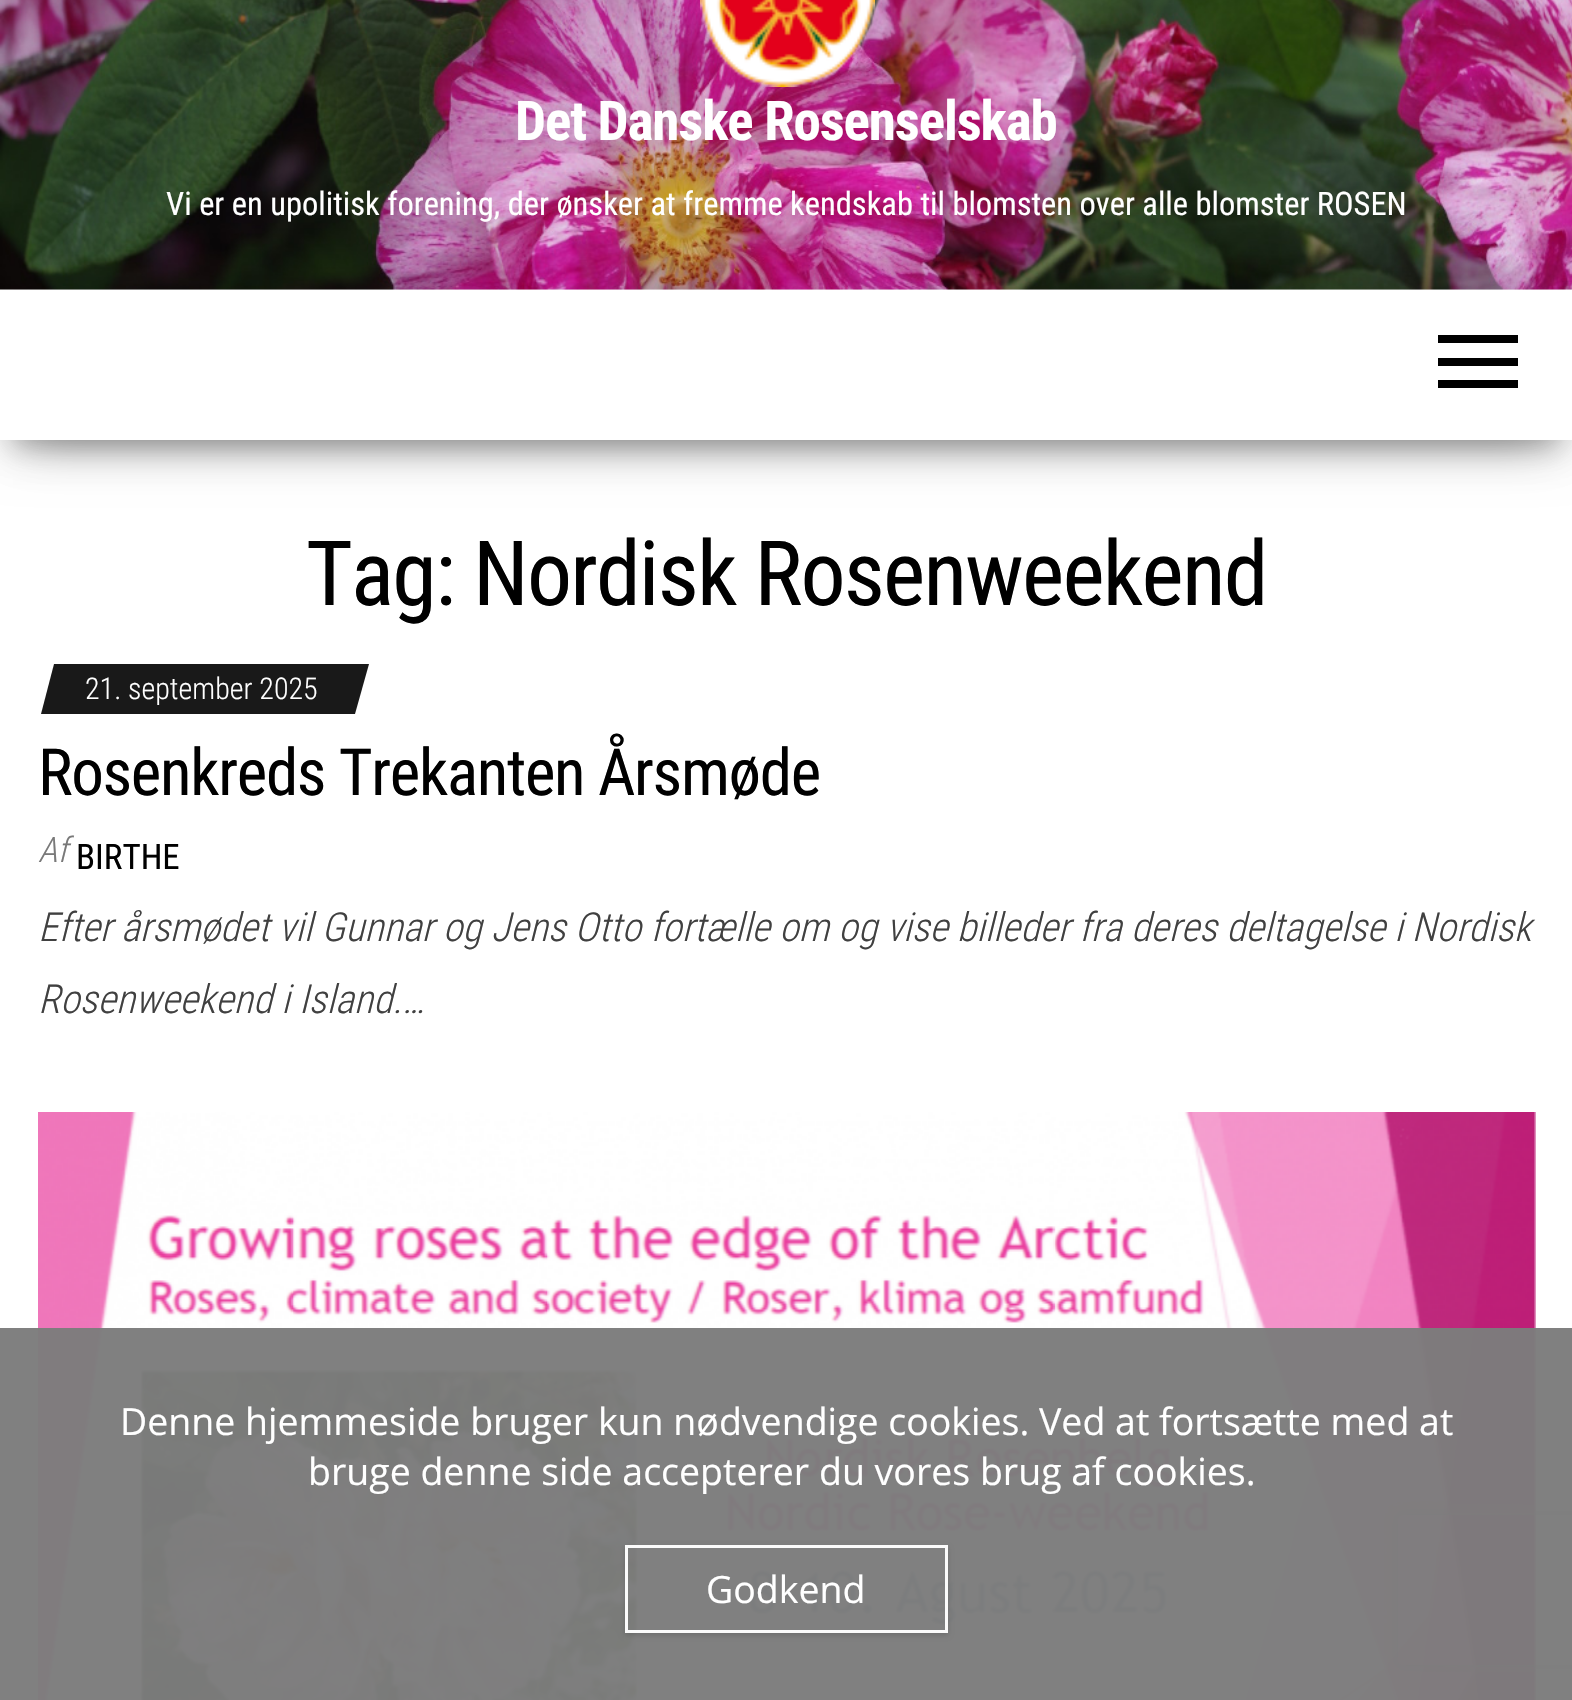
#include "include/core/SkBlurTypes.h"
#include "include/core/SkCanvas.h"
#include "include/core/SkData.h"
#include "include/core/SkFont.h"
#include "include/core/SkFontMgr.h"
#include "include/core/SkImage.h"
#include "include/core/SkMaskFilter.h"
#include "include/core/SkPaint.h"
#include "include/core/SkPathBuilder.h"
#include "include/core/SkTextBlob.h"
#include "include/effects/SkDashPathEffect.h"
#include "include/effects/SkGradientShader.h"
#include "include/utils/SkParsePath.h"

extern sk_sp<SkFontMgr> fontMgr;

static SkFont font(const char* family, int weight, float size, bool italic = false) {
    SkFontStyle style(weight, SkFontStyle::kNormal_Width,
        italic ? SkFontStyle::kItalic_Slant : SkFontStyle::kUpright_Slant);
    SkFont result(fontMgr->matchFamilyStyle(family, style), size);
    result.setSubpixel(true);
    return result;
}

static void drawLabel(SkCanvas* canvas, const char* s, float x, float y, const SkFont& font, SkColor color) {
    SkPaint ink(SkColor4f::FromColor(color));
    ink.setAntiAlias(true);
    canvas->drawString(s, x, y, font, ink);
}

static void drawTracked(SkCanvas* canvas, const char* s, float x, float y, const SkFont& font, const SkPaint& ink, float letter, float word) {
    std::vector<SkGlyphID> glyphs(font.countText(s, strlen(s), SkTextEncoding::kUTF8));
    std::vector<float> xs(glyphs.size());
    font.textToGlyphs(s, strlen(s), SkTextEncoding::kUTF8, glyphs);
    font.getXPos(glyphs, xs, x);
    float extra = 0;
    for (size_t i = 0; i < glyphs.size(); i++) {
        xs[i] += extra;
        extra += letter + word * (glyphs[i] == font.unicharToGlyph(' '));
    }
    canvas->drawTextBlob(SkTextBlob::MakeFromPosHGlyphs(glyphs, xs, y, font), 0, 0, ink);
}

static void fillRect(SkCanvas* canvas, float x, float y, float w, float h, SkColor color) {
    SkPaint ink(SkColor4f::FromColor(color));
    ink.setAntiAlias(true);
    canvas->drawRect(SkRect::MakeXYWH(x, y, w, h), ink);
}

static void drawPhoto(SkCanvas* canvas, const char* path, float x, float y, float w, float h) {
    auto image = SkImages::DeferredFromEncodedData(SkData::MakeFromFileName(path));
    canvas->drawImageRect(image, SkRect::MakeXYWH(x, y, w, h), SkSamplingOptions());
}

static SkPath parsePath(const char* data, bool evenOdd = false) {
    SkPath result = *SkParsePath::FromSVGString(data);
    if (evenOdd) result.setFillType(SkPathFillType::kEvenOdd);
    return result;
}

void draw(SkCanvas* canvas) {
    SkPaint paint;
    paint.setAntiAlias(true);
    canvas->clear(0xFFFFFFFF);
    drawPhoto(canvas, "assets/img1.png", 0, 0, 1572, 290);
    drawPhoto(canvas, "assets/img2.png", 700, 0, 175, 87);
    SkFont font1 = font("Roboto Condensed", 700, 55);
    paint.setColor(0xFFFFFFFF);
    drawTracked(canvas, "Det Danske Rosenselskab", 515, 140, font1, paint, -1.1f, 0);
    SkFont font2 = font("Roboto Condensed", 400, 32.5f);
    drawLabel(canvas, "Vi er en upolitisk forening, der ønsker at fremme kendskab til blomsten over alle blomster ROSEN", 166, 215, font2, 0xFFFFFFFF);
    paint.setColor(0x33000000);
    paint.setMaskFilter(SkMaskFilter::MakeBlur(kNormal_SkBlurStyle, 12.5f));
    canvas->drawRect(SkRect::MakeXYWH(13, 323, 1547, 125), paint);
    paint.setMaskFilter(nullptr);
    paint.setColor(0x1F000000);
    paint.setMaskFilter(SkMaskFilter::MakeBlur(kNormal_SkBlurStyle, 25));
    canvas->drawRect(SkRect::MakeXYWH(0, 298, 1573, 150), paint);
    paint.setMaskFilter(nullptr);
    paint.setColor(0x6B000000);
    paint.setMaskFilter(SkMaskFilter::MakeBlur(kNormal_SkBlurStyle, 25));
    canvas->drawRect(SkRect::MakeXYWH(30, 345, 1513, 90), paint);
    paint.setMaskFilter(nullptr);
    fillRect(canvas, 0, 290, 1572, 150, 0xFFFFFFFF);
    fillRect(canvas, 1438, 335, 80, 8, 0xFF000000);
    fillRect(canvas, 1438, 358, 80, 8, 0xFF000000);
    fillRect(canvas, 1438, 380, 80, 8, 0xFF000000);
    SkFont font3 = font("Roboto Condensed", 400, 90);
    paint.setColor(0xFF000000);
    drawTracked(canvas, "Tag: Nordisk Rosenweekend", 306, 605, font3, paint, -1.8f, 0);
    paint.setColor(0xFF191919);
    canvas->drawPath(parsePath("M54 664H369L355 714H41Z"), paint);
    SkFont font4 = font("Roboto Condensed", 300, 30);
    drawLabel(canvas, "21. september 2025", 85, 699, font4, 0xFFFFFFFF);
    SkFont font5 = font("Roboto Condensed", 400, 65);
    paint.setColor(0xFF000000);
    drawTracked(canvas, "Rosenkreds Trekanten Årsmøde", 38, 795, font5, paint, -1.3f, 0);
    SkFont font6 = font("Roboto Condensed", 300, 35, true);
    drawLabel(canvas, "Af", 38, 862, font6, 0xFF797979);
    SkFont font7 = font("Roboto Condensed", 400, 35);
    drawLabel(canvas, "BIRTHE", 76, 869, font7, 0xFF000000);
    SkFont font8 = font("Roboto Condensed", 300, 40, true);
    drawLabel(canvas, "Efter årsmødet vil Gunnar og Jens Otto fortælle om og vise billeder fra deres deltagelse i Nordisk", 38, 941, font8, 0xFF404040);
    drawLabel(canvas, "Rosenweekend i Island.…", 38, 1013, font8, 0xFF404040);
    drawPhoto(canvas, "assets/img3.png", 38, 1112, 1498, 588);
    canvas->save();
    canvas->clipPath(parsePath("M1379 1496H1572V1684H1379ZM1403 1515H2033C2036 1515 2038 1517 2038 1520V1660C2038 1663 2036 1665 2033 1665H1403C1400 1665 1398 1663 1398 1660V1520C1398 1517 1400 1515 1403 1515Z", true), true);
    paint.setColor(0xFF808080);
    paint.setMaskFilter(SkMaskFilter::MakeBlur(kNormal_SkBlurStyle, 6));
    canvas->drawRoundRect(SkRect::MakeXYWH(1398, 1515, 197, 150), 5, 5, paint);
    paint.setMaskFilter(nullptr);
    canvas->restore();
    fillRect(canvas, 0, 1328, 1572, 372, 0xF77C7C7C);
    SkFont font9 = font("Open Sans", 400, 37.5f);
    drawLabel(canvas, "Denne hjemmeside bruger kun nødvendige cookies. Ved at fortsætte med at", 120, 1435, font9, 0xFFFFFFFF);
    drawLabel(canvas, "bruge denne side accepterer du vores brug af cookies.", 308, 1485, font9, 0xFFFFFFFF);
    canvas->save();
    canvas->clipPath(parsePath("M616 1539H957V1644H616ZM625 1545H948V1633H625Z", true), true);
    paint.setColor(0x26000000);
    paint.setMaskFilter(SkMaskFilter::MakeBlur(kNormal_SkBlurStyle, 2.5f));
    canvas->drawRect(SkRect::MakeXYWH(625, 1548, 323, 87), paint);
    paint.setMaskFilter(nullptr);
    canvas->restore();
    paint.setStroke(true);
    paint.setStrokeWidth(3);
    paint.setColor(0xF7FFFFFF);
    canvas->drawRect(SkRect::MakeXYWH(626.5f, 1546.5f, 320, 85), paint);
    drawLabel(canvas, "Godkend", 706, 1603, font9, 0xFFFFFFFF);
}
